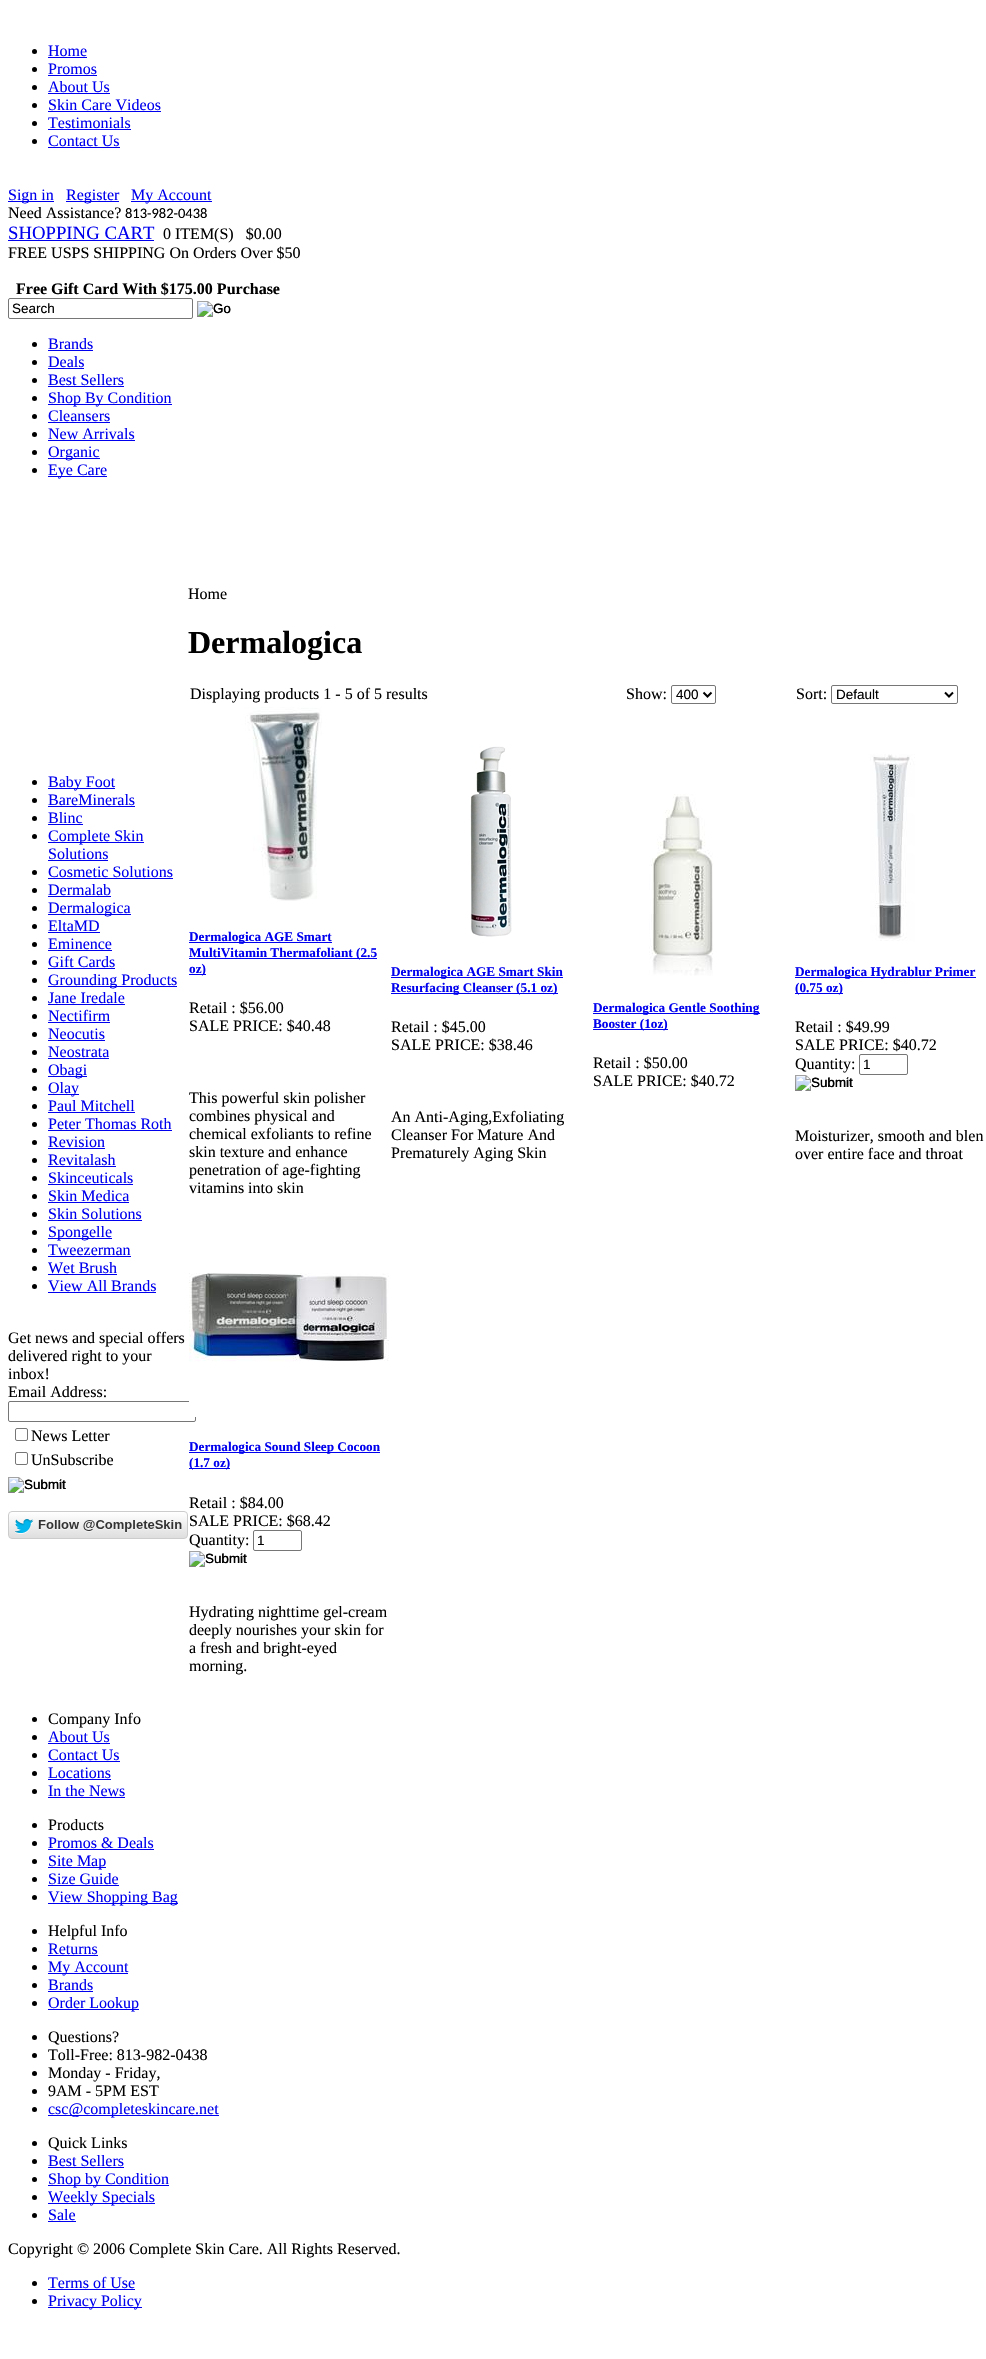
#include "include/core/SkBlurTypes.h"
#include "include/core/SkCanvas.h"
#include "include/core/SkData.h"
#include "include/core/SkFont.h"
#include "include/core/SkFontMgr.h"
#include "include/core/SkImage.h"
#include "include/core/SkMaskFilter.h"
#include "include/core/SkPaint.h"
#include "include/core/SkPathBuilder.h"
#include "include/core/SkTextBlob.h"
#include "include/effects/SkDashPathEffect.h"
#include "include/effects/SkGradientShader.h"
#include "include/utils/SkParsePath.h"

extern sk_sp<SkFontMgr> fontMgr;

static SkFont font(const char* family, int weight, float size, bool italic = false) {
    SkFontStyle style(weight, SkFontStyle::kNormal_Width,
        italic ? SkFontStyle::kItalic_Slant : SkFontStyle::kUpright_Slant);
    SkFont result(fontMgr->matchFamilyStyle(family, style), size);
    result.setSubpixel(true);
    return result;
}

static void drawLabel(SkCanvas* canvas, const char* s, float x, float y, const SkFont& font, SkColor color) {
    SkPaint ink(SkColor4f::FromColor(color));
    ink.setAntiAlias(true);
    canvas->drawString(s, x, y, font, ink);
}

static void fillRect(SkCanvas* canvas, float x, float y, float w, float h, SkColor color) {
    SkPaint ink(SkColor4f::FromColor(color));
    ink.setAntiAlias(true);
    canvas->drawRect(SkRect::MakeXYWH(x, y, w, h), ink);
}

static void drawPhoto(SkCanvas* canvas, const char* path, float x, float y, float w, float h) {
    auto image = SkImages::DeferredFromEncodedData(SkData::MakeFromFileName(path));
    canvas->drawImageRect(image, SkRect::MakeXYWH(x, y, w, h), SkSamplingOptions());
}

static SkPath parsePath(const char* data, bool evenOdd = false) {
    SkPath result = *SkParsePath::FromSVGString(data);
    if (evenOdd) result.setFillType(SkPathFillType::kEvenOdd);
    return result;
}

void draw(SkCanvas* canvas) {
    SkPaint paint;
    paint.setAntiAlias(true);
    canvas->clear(0xFFFFFFFF);
    paint.setColor(0xFF000000);
    canvas->drawCircle(34.5f, 51.5f, 2.5f, paint);
    SkFont font1 = font("Liberation Serif", 400, 16);
    drawLabel(canvas, "Home", 48, 56, font1, 0xFF0000EE);
    fillRect(canvas, 48, 57, 39, 1, 0xFF0000EE);
    canvas->drawCircle(34.5f, 69.5f, 2.5f, paint);
    drawLabel(canvas, "Promos", 48, 74, font1, 0xFF0000EE);
    fillRect(canvas, 48, 75, 49, 1, 0xFF0000EE);
    canvas->drawCircle(34.5f, 87.5f, 2.5f, paint);
    drawLabel(canvas, "About Us", 48, 92, font1, 0xFF0000EE);
    fillRect(canvas, 48, 93, 62, 1, 0xFF0000EE);
    canvas->drawCircle(34.5f, 105.5f, 2.5f, paint);
    drawLabel(canvas, "Skin Care Videos", 48, 110, font1, 0xFF0000EE);
    fillRect(canvas, 48, 111, 113, 1, 0xFF0000EE);
    canvas->drawCircle(34.5f, 123.5f, 2.5f, paint);
    drawLabel(canvas, "Testimonials", 48, 128, font1, 0xFF0000EE);
    fillRect(canvas, 48, 129, 83, 1, 0xFF0000EE);
    canvas->drawCircle(34.5f, 141.5f, 2.5f, paint);
    drawLabel(canvas, "Contact Us", 48, 146, font1, 0xFF0000EE);
    fillRect(canvas, 48, 147, 72, 1, 0xFF0000EE);
    fillRect(canvas, 8, 201, 46, 1, 0xFF0000EE);
    drawLabel(canvas, "Sign in", 8, 200, font1, 0xFF0000EE);
    fillRect(canvas, 66, 201, 53, 1, 0xFF0000EE);
    drawLabel(canvas, "Register", 66, 200, font1, 0xFF0000EE);
    fillRect(canvas, 131, 201, 81, 1, 0xFF0000EE);
    drawLabel(canvas, "My Account", 131, 200, font1, 0xFF0000EE);
    drawLabel(canvas, "Need Assistance?", 8, 218, font1, 0xFF000000);
    SkFont font2 = font("Carlito", 400, 14.5f);
    drawLabel(canvas, "813-982-0438", 125, 218, font2, 0xFF000000);
    SkFont font3 = font("Liberation Serif", 400, 18.75f);
    drawLabel(canvas, "SHOPPING CART", 8, 239, font3, 0xFF0000EE);
    fillRect(canvas, 8, 240, 146, 1, 0xFF0000EE);
    drawLabel(canvas, "0 ITEM(S)   $0.00", 163, 239, font1, 0xFF000000);
    drawLabel(canvas, "FREE USPS SHIPPING On Orders Over $50", 8, 258, font1, 0xFF000000);
    SkFont font4 = font("Liberation Serif", 700, 16);
    drawLabel(canvas, "Free Gift Card With $175.00 Purchase", 16, 294, font4, 0xFF000000);
    paint.setStroke(true);
    paint.setStrokeWidth(1);
    paint.setColor(0xFF767676);
    canvas->drawRoundRect(SkRect::MakeXYWH(8.5f, 298.5f, 184, 20), 1.5f, 1.5f, paint);
    SkFont font5 = font("Liberation Sans", 400, 13.5f);
    drawLabel(canvas, "Search", 12, 313, font5, 0xFF000000);
    drawPhoto(canvas, "assets/img1.png", 197, 301, 34, 16);
    drawLabel(canvas, "Go", 213, 313, font5, 0xFF000000);
    paint.setStroke(false);
    paint.setColor(0xFF000000);
    canvas->drawCircle(34.5f, 344.5f, 2.5f, paint);
    drawLabel(canvas, "Brands", 48, 349, font1, 0xFF0000EE);
    fillRect(canvas, 48, 350, 45, 1, 0xFF0000EE);
    canvas->drawCircle(34.5f, 362.5f, 2.5f, paint);
    drawLabel(canvas, "Deals", 48, 367, font1, 0xFF0000EE);
    fillRect(canvas, 48, 368, 36, 1, 0xFF0000EE);
    canvas->drawCircle(34.5f, 380.5f, 2.5f, paint);
    drawLabel(canvas, "Best Sellers", 48, 385, font1, 0xFF0000EE);
    fillRect(canvas, 48, 386, 76, 1, 0xFF0000EE);
    canvas->drawCircle(34.5f, 398.5f, 2.5f, paint);
    fillRect(canvas, 48, 404, 124, 1, 0xFF0000EE);
    drawLabel(canvas, "Shop By Condition", 48, 403, font1, 0xFF0000EE);
    canvas->drawCircle(34.5f, 416.5f, 2.5f, paint);
    drawLabel(canvas, "Cleansers", 48, 421, font1, 0xFF0000EE);
    fillRect(canvas, 48, 422, 62, 1, 0xFF0000EE);
    canvas->drawCircle(34.5f, 434.5f, 2.5f, paint);
    drawLabel(canvas, "New Arrivals", 48, 439, font1, 0xFF0000EE);
    fillRect(canvas, 48, 440, 87, 1, 0xFF0000EE);
    canvas->drawCircle(34.5f, 452.5f, 2.5f, paint);
    fillRect(canvas, 48, 458, 52, 1, 0xFF0000EE);
    drawLabel(canvas, "Organic", 48, 457, font1, 0xFF0000EE);
    canvas->drawCircle(34.5f, 470.5f, 2.5f, paint);
    fillRect(canvas, 48, 476, 59, 1, 0xFF0000EE);
    drawLabel(canvas, "Eye Care", 48, 475, font1, 0xFF0000EE);
    canvas->drawCircle(34.5f, 782.5f, 2.5f, paint);
    fillRect(canvas, 48, 788, 67, 1, 0xFF0000EE);
    drawLabel(canvas, "Baby Foot", 48, 787, font1, 0xFF0000EE);
    canvas->drawCircle(34.5f, 800.5f, 2.5f, paint);
    drawLabel(canvas, "BareMinerals", 48, 805, font1, 0xFF0000EE);
    fillRect(canvas, 48, 806, 87, 1, 0xFF0000EE);
    canvas->drawCircle(34.5f, 818.5f, 2.5f, paint);
    drawLabel(canvas, "Blinc", 48, 823, font1, 0xFF0000EE);
    fillRect(canvas, 48, 824, 35, 1, 0xFF0000EE);
    canvas->drawCircle(34.5f, 836.5f, 2.5f, paint);
    fillRect(canvas, 48, 842, 96, 1, 0xFF0000EE);
    drawLabel(canvas, "Complete Skin", 48, 841, font1, 0xFF0000EE);
    drawLabel(canvas, "Solutions", 48, 859, font1, 0xFF0000EE);
    fillRect(canvas, 48, 860, 60, 1, 0xFF0000EE);
    canvas->drawCircle(34.5f, 872.5f, 2.5f, paint);
    drawLabel(canvas, "Cosmetic Solutions", 48, 877, font1, 0xFF0000EE);
    fillRect(canvas, 48, 878, 125, 1, 0xFF0000EE);
    canvas->drawCircle(34.5f, 890.5f, 2.5f, paint);
    drawLabel(canvas, "Dermalab", 48, 895, font1, 0xFF0000EE);
    fillRect(canvas, 48, 896, 63, 1, 0xFF0000EE);
    canvas->drawCircle(34.5f, 908.5f, 2.5f, paint);
    fillRect(canvas, 48, 914, 83, 1, 0xFF0000EE);
    drawLabel(canvas, "Dermalogica", 48, 913, font1, 0xFF0000EE);
    canvas->drawCircle(34.5f, 926.5f, 2.5f, paint);
    drawLabel(canvas, "EltaMD", 48, 931, font1, 0xFF0000EE);
    fillRect(canvas, 48, 932, 52, 1, 0xFF0000EE);
    canvas->drawCircle(34.5f, 944.5f, 2.5f, paint);
    drawLabel(canvas, "Eminence", 48, 949, font1, 0xFF0000EE);
    fillRect(canvas, 48, 950, 64, 1, 0xFF0000EE);
    canvas->drawCircle(34.5f, 962.5f, 2.5f, paint);
    drawLabel(canvas, "Gift Cards", 48, 967, font1, 0xFF0000EE);
    fillRect(canvas, 48, 968, 67, 1, 0xFF0000EE);
    canvas->drawCircle(34.5f, 980.5f, 2.5f, paint);
    fillRect(canvas, 48, 986, 129, 1, 0xFF0000EE);
    drawLabel(canvas, "Grounding Products", 48, 985, font1, 0xFF0000EE);
    canvas->drawCircle(34.5f, 998.5f, 2.5f, paint);
    drawLabel(canvas, "Jane Iredale", 48, 1003, font1, 0xFF0000EE);
    fillRect(canvas, 48, 1004, 77, 1, 0xFF0000EE);
    canvas->drawCircle(34.5f, 1016.5f, 2.5f, paint);
    drawLabel(canvas, "Nectifirm", 48, 1021, font1, 0xFF0000EE);
    fillRect(canvas, 48, 1022, 62, 1, 0xFF0000EE);
    canvas->drawCircle(34.5f, 1034.5f, 2.5f, paint);
    drawLabel(canvas, "Neocutis", 48, 1039, font1, 0xFF0000EE);
    fillRect(canvas, 48, 1040, 57, 1, 0xFF0000EE);
    canvas->drawCircle(34.5f, 1052.5f, 2.5f, paint);
    drawLabel(canvas, "Neostrata", 48, 1057, font1, 0xFF0000EE);
    fillRect(canvas, 48, 1058, 61, 1, 0xFF0000EE);
    canvas->drawCircle(34.5f, 1070.5f, 2.5f, paint);
    fillRect(canvas, 48, 1076, 39, 1, 0xFF0000EE);
    drawLabel(canvas, "Obagi", 48, 1075, font1, 0xFF0000EE);
    canvas->drawCircle(34.5f, 1088.5f, 2.5f, paint);
    fillRect(canvas, 48, 1094, 31, 1, 0xFF0000EE);
    drawLabel(canvas, "Olay", 48, 1093, font1, 0xFF0000EE);
    canvas->drawCircle(34.5f, 1106.5f, 2.5f, paint);
    drawLabel(canvas, "Paul Mitchell", 48, 1111, font1, 0xFF0000EE);
    fillRect(canvas, 48, 1112, 87, 1, 0xFF0000EE);
    canvas->drawCircle(34.5f, 1124.5f, 2.5f, paint);
    drawLabel(canvas, "Peter Thomas Roth", 48, 1129, font1, 0xFF0000EE);
    fillRect(canvas, 48, 1130, 124, 1, 0xFF0000EE);
    canvas->drawCircle(34.5f, 1142.5f, 2.5f, paint);
    drawLabel(canvas, "Revision", 48, 1147, font1, 0xFF0000EE);
    fillRect(canvas, 48, 1148, 57, 1, 0xFF0000EE);
    canvas->drawCircle(34.5f, 1160.5f, 2.5f, paint);
    drawLabel(canvas, "Revitalash", 48, 1165, font1, 0xFF0000EE);
    fillRect(canvas, 48, 1166, 68, 1, 0xFF0000EE);
    canvas->drawCircle(34.5f, 1178.5f, 2.5f, paint);
    drawLabel(canvas, "Skinceuticals", 48, 1183, font1, 0xFF0000EE);
    fillRect(canvas, 48, 1184, 85, 1, 0xFF0000EE);
    canvas->drawCircle(34.5f, 1196.5f, 2.5f, paint);
    drawLabel(canvas, "Skin Medica", 48, 1201, font1, 0xFF0000EE);
    fillRect(canvas, 48, 1202, 81, 1, 0xFF0000EE);
    canvas->drawCircle(34.5f, 1214.5f, 2.5f, paint);
    drawLabel(canvas, "Skin Solutions", 48, 1219, font1, 0xFF0000EE);
    fillRect(canvas, 48, 1220, 94, 1, 0xFF0000EE);
    canvas->drawCircle(34.5f, 1232.5f, 2.5f, paint);
    fillRect(canvas, 48, 1238, 64, 1, 0xFF0000EE);
    drawLabel(canvas, "Spongelle", 48, 1237, font1, 0xFF0000EE);
    canvas->drawCircle(34.5f, 1250.5f, 2.5f, paint);
    drawLabel(canvas, "Tweezerman", 48, 1255, font1, 0xFF0000EE);
    fillRect(canvas, 48, 1256, 83, 1, 0xFF0000EE);
    canvas->drawCircle(34.5f, 1268.5f, 2.5f, paint);
    drawLabel(canvas, "Wet Brush", 48, 1273, font1, 0xFF0000EE);
    fillRect(canvas, 48, 1274, 69, 1, 0xFF0000EE);
    canvas->drawCircle(34.5f, 1286.5f, 2.5f, paint);
    drawLabel(canvas, "View All Brands", 48, 1291, font1, 0xFF0000EE);
    fillRect(canvas, 48, 1292, 108, 1, 0xFF0000EE);
    drawLabel(canvas, "Get news and special offers", 8, 1343, font1, 0xFF000000);
    drawLabel(canvas, "delivered right to your", 8, 1361, font1, 0xFF000000);
    drawLabel(canvas, "inbox!", 8, 1379, font1, 0xFF000000);
    drawLabel(canvas, "Email Address:", 8, 1397, font1, 0xFF000000);
    paint.setStroke(true);
    paint.setColor(0xFF767676);
    canvas->drawRoundRect(SkRect::MakeXYWH(8.5f, 1401.5f, 187, 20), 1.5f, 1.5f, paint);
    canvas->drawRoundRect(SkRect::MakeXYWH(15.5f, 1428.5f, 12, 12), 1.5f, 1.5f, paint);
    drawLabel(canvas, "News Letter", 31, 1441, font1, 0xFF000000);
    canvas->drawRoundRect(SkRect::MakeXYWH(15.5f, 1452.5f, 12, 12), 1.5f, 1.5f, paint);
    drawLabel(canvas, "UnSubscribe", 31, 1465, font1, 0xFF000000);
    drawPhoto(canvas, "assets/img2.png", 8, 1477, 57, 16);
    drawLabel(canvas, "Submit", 24, 1489, font5, 0xFF000000);
    drawPhoto(canvas, "assets/img3.png", 8, 1511, 180, 28);
    drawLabel(canvas, "Home", 188, 599, font1, 0xFF000000);
    SkFont font6 = font("Liberation Serif", 700, 32);
    drawLabel(canvas, "Dermalogica", 188, 653, font6, 0xFF000000);
    drawLabel(canvas, "Displaying products 1 - 5 of 5 results", 190, 699, font1, 0xFF000000);
    drawLabel(canvas, "Show:", 626, 699, font1, 0xFF000000);
    canvas->drawRoundRect(SkRect::MakeXYWH(671.5f, 685.5f, 44, 18), 1.5f, 1.5f, paint);
    paint.setStrokeWidth(2);
    paint.setColor(0xFF000000);
    canvas->drawPath(parsePath("M703.5 692.5L707.5 696.5L711.5 692.5"), paint);
    drawLabel(canvas, "400", 676, 699, font5, 0xFF000000);
    drawLabel(canvas, "Sort:", 796, 699, font1, 0xFF000000);
    paint.setStrokeWidth(1);
    paint.setColor(0xFF767676);
    canvas->drawRoundRect(SkRect::MakeXYWH(831.5f, 685.5f, 126, 18), 1.5f, 1.5f, paint);
    paint.setStrokeWidth(2);
    paint.setColor(0xFF000000);
    canvas->drawPath(parsePath("M945 692.5L949 696.5L953 692.5"), paint);
    drawLabel(canvas, "Default", 836, 699, font5, 0xFF000000);
    drawPhoto(canvas, "assets/img4.png", 245, 707, 77, 194);
    fillRect(canvas, 189, 942, 143, 1, 0xFF0000EE);
    SkFont font7 = font("Liberation Serif", 700, 13.25f);
    drawLabel(canvas, "Dermalogica AGE Smart", 189, 941, font7, 0xFF0000EE);
    fillRect(canvas, 189, 958, 188, 1, 0xFF0000EE);
    drawLabel(canvas, "MultiVitamin Thermafoliant (2.5", 189, 957, font7, 0xFF0000EE);
    fillRect(canvas, 189, 974, 17, 1, 0xFF0000EE);
    drawLabel(canvas, "oz)", 189, 973, font7, 0xFF0000EE);
    drawLabel(canvas, "Retail : $56.00", 189, 1013, font1, 0xFF000000);
    drawLabel(canvas, "SALE PRICE: $40.48", 189, 1031, font1, 0xFF000000);
    drawLabel(canvas, "This powerful skin polisher", 189, 1103, font1, 0xFF000000);
    drawLabel(canvas, "combines physical and", 189, 1121, font1, 0xFF000000);
    drawLabel(canvas, "chemical exfoliants to refine", 189, 1139, font1, 0xFF000000);
    drawLabel(canvas, "skin texture and enhance", 189, 1157, font1, 0xFF000000);
    drawLabel(canvas, "penetration of age-fighting", 189, 1175, font1, 0xFF000000);
    drawLabel(canvas, "vitamins into skin", 189, 1193, font1, 0xFF000000);
    drawPhoto(canvas, "assets/img5.png", 470, 746, 42, 191);
    fillRect(canvas, 391, 977, 172, 1, 0xFF0000EE);
    drawLabel(canvas, "Dermalogica AGE Smart Skin", 391, 976, font7, 0xFF0000EE);
    fillRect(canvas, 391, 993, 167, 1, 0xFF0000EE);
    drawLabel(canvas, "Resurfacing Cleanser (5.1 oz)", 391, 992, font7, 0xFF0000EE);
    drawLabel(canvas, "Retail : $45.00", 391, 1032, font1, 0xFF000000);
    drawLabel(canvas, "SALE PRICE: $38.46", 391, 1050, font1, 0xFF000000);
    drawLabel(canvas, "An Anti-Aging,Exfoliating", 391, 1122, font1, 0xFF000000);
    drawLabel(canvas, "Cleanser For Mature And", 391, 1140, font1, 0xFF000000);
    drawLabel(canvas, "Prematurely Aging Skin", 391, 1158, font1, 0xFF000000);
    drawPhoto(canvas, "assets/img6.png", 649, 794, 64, 182);
    fillRect(canvas, 593, 1013, 167, 1, 0xFF0000EE);
    drawLabel(canvas, "Dermalogica Gentle Soothing", 593, 1012, font7, 0xFF0000EE);
    fillRect(canvas, 593, 1029, 75, 1, 0xFF0000EE);
    drawLabel(canvas, "Booster (1oz)", 593, 1028, font7, 0xFF0000EE);
    drawLabel(canvas, "Retail : $50.00", 593, 1068, font1, 0xFF000000);
    drawLabel(canvas, "SALE PRICE: $40.72", 593, 1086, font1, 0xFF000000);
    drawPhoto(canvas, "assets/img7.png", 870, 754, 45, 187);
    fillRect(canvas, 795, 977, 181, 1, 0xFF0000EE);
    drawLabel(canvas, "Dermalogica Hydrablur Primer", 795, 976, font7, 0xFF0000EE);
    fillRect(canvas, 795, 993, 48, 1, 0xFF0000EE);
    drawLabel(canvas, "(0.75 oz)", 795, 992, font7, 0xFF0000EE);
    drawLabel(canvas, "Retail : $49.99", 795, 1032, font1, 0xFF000000);
    drawLabel(canvas, "SALE PRICE: $40.72", 795, 1050, font1, 0xFF000000);
    drawLabel(canvas, "Quantity:", 795, 1069, font1, 0xFF000000);
    paint.setStrokeWidth(1);
    paint.setColor(0xFF767676);
    canvas->drawRoundRect(SkRect::MakeXYWH(859.5f, 1054.5f, 48, 20), 1.5f, 1.5f, paint);
    drawLabel(canvas, "1", 863, 1069, font5, 0xFF000000);
    drawPhoto(canvas, "assets/img2.png", 795, 1075, 57, 16);
    drawLabel(canvas, "Submit", 811, 1087, font5, 0xFF000000);
    drawLabel(canvas, "Moisturizer, smooth and blen", 795, 1141, font1, 0xFF000000);
    drawLabel(canvas, "over entire face and throat", 795, 1159, font1, 0xFF000000);
    drawPhoto(canvas, "assets/img8.png", 189, 1273, 200, 144);
    fillRect(canvas, 189, 1452, 191, 1, 0xFF0000EE);
    drawLabel(canvas, "Dermalogica Sound Sleep Cocoon", 189, 1451, font7, 0xFF0000EE);
    fillRect(canvas, 189, 1468, 41, 1, 0xFF0000EE);
    drawLabel(canvas, "(1.7 oz)", 189, 1467, font7, 0xFF0000EE);
    drawLabel(canvas, "Retail : $84.00", 189, 1508, font1, 0xFF000000);
    drawLabel(canvas, "SALE PRICE: $68.42", 189, 1526, font1, 0xFF000000);
    drawLabel(canvas, "Quantity:", 189, 1545, font1, 0xFF000000);
    canvas->drawRoundRect(SkRect::MakeXYWH(253.5f, 1530.5f, 48, 20), 1.5f, 1.5f, paint);
    drawLabel(canvas, "1", 257, 1545, font5, 0xFF000000);
    drawPhoto(canvas, "assets/img2.png", 189, 1551, 57, 16);
    drawLabel(canvas, "Submit", 205, 1563, font5, 0xFF000000);
    drawLabel(canvas, "Hydrating nighttime gel-cream", 189, 1617, font1, 0xFF000000);
    drawLabel(canvas, "deeply nourishes your skin for", 189, 1635, font1, 0xFF000000);
    drawLabel(canvas, "a fresh and bright-eyed", 189, 1653, font1, 0xFF000000);
    drawLabel(canvas, "morning.", 189, 1671, font1, 0xFF000000);
    paint.setStroke(false);
    paint.setColor(0xFF000000);
    canvas->drawCircle(34.5f, 1719.5f, 2.5f, paint);
    drawLabel(canvas, "Company Info", 48, 1724, font1, 0xFF000000);
    canvas->drawCircle(34.5f, 1737.5f, 2.5f, paint);
    drawLabel(canvas, "About Us", 48, 1742, font1, 0xFF0000EE);
    fillRect(canvas, 48, 1743, 62, 1, 0xFF0000EE);
    canvas->drawCircle(34.5f, 1755.5f, 2.5f, paint);
    drawLabel(canvas, "Contact Us", 48, 1760, font1, 0xFF0000EE);
    fillRect(canvas, 48, 1761, 72, 1, 0xFF0000EE);
    canvas->drawCircle(34.5f, 1773.5f, 2.5f, paint);
    drawLabel(canvas, "Locations", 48, 1778, font1, 0xFF0000EE);
    fillRect(canvas, 48, 1779, 63, 1, 0xFF0000EE);
    canvas->drawCircle(34.5f, 1791.5f, 2.5f, paint);
    drawLabel(canvas, "In the News", 48, 1796, font1, 0xFF0000EE);
    fillRect(canvas, 48, 1797, 77, 1, 0xFF0000EE);
    canvas->drawCircle(34.5f, 1825.5f, 2.5f, paint);
    drawLabel(canvas, "Products", 48, 1830, font1, 0xFF000000);
    canvas->drawCircle(34.5f, 1843.5f, 2.5f, paint);
    drawLabel(canvas, "Promos & Deals", 48, 1848, font1, 0xFF0000EE);
    fillRect(canvas, 48, 1849, 106, 1, 0xFF0000EE);
    canvas->drawCircle(34.5f, 1861.5f, 2.5f, paint);
    fillRect(canvas, 48, 1867, 58, 1, 0xFF0000EE);
    drawLabel(canvas, "Site Map", 48, 1866, font1, 0xFF0000EE);
    canvas->drawCircle(34.5f, 1879.5f, 2.5f, paint);
    drawLabel(canvas, "Size Guide", 48, 1884, font1, 0xFF0000EE);
    fillRect(canvas, 48, 1885, 71, 1, 0xFF0000EE);
    canvas->drawCircle(34.5f, 1897.5f, 2.5f, paint);
    fillRect(canvas, 48, 1903, 130, 1, 0xFF0000EE);
    drawLabel(canvas, "View Shopping Bag", 48, 1902, font1, 0xFF0000EE);
    canvas->drawCircle(34.5f, 1931.5f, 2.5f, paint);
    drawLabel(canvas, "Helpful Info", 48, 1936, font1, 0xFF000000);
    canvas->drawCircle(34.5f, 1949.5f, 2.5f, paint);
    drawLabel(canvas, "Returns", 48, 1954, font1, 0xFF0000EE);
    fillRect(canvas, 48, 1955, 50, 1, 0xFF0000EE);
    canvas->drawCircle(34.5f, 1967.5f, 2.5f, paint);
    fillRect(canvas, 48, 1973, 80, 1, 0xFF0000EE);
    drawLabel(canvas, "My Account", 48, 1972, font1, 0xFF0000EE);
    canvas->drawCircle(34.5f, 1985.5f, 2.5f, paint);
    drawLabel(canvas, "Brands", 48, 1990, font1, 0xFF0000EE);
    fillRect(canvas, 48, 1991, 45, 1, 0xFF0000EE);
    canvas->drawCircle(34.5f, 2003.5f, 2.5f, paint);
    fillRect(canvas, 48, 2009, 91, 1, 0xFF0000EE);
    drawLabel(canvas, "Order Lookup", 48, 2008, font1, 0xFF0000EE);
    canvas->drawCircle(34.5f, 2037.5f, 2.5f, paint);
    drawLabel(canvas, "Questions?", 48, 2042, font1, 0xFF000000);
    canvas->drawCircle(34.5f, 2055.5f, 2.5f, paint);
    drawLabel(canvas, "Toll-Free: 813-982-0438", 48, 2060, font1, 0xFF000000);
    canvas->drawCircle(34.5f, 2073.5f, 2.5f, paint);
    drawLabel(canvas, "Monday - Friday,", 48, 2078, font1, 0xFF000000);
    canvas->drawCircle(34.5f, 2091.5f, 2.5f, paint);
    drawLabel(canvas, "9AM - 5PM EST", 48, 2096, font1, 0xFF000000);
    canvas->drawCircle(34.5f, 2109.5f, 2.5f, paint);
    fillRect(canvas, 48, 2115, 171, 1, 0xFF0000EE);
    drawLabel(canvas, "csc@completeskincare.net", 48, 2114, font1, 0xFF0000EE);
    canvas->drawCircle(34.5f, 2143.5f, 2.5f, paint);
    drawLabel(canvas, "Quick Links", 48, 2148, font1, 0xFF000000);
    canvas->drawCircle(34.5f, 2161.5f, 2.5f, paint);
    drawLabel(canvas, "Best Sellers", 48, 2166, font1, 0xFF0000EE);
    fillRect(canvas, 48, 2167, 76, 1, 0xFF0000EE);
    canvas->drawCircle(34.5f, 2179.5f, 2.5f, paint);
    fillRect(canvas, 48, 2185, 121, 1, 0xFF0000EE);
    drawLabel(canvas, "Shop by Condition", 48, 2184, font1, 0xFF0000EE);
    canvas->drawCircle(34.5f, 2197.5f, 2.5f, paint);
    fillRect(canvas, 48, 2203, 107, 1, 0xFF0000EE);
    drawLabel(canvas, "Weekly Specials", 48, 2202, font1, 0xFF0000EE);
    canvas->drawCircle(34.5f, 2215.5f, 2.5f, paint);
    drawLabel(canvas, "Sale", 48, 2220, font1, 0xFF0000EE);
    fillRect(canvas, 48, 2221, 28, 1, 0xFF0000EE);
    drawLabel(canvas, "Copyright © 2006 Complete Skin Care. All Rights Reserved.", 8, 2254, font1, 0xFF000000);
    canvas->drawCircle(34.5f, 2283.5f, 2.5f, paint);
    drawLabel(canvas, "Terms of Use", 48, 2288, font1, 0xFF0000EE);
    fillRect(canvas, 48, 2289, 87, 1, 0xFF0000EE);
    canvas->drawCircle(34.5f, 2301.5f, 2.5f, paint);
    fillRect(canvas, 48, 2307, 94, 1, 0xFF0000EE);
    drawLabel(canvas, "Privacy Policy", 48, 2306, font1, 0xFF0000EE);
}
